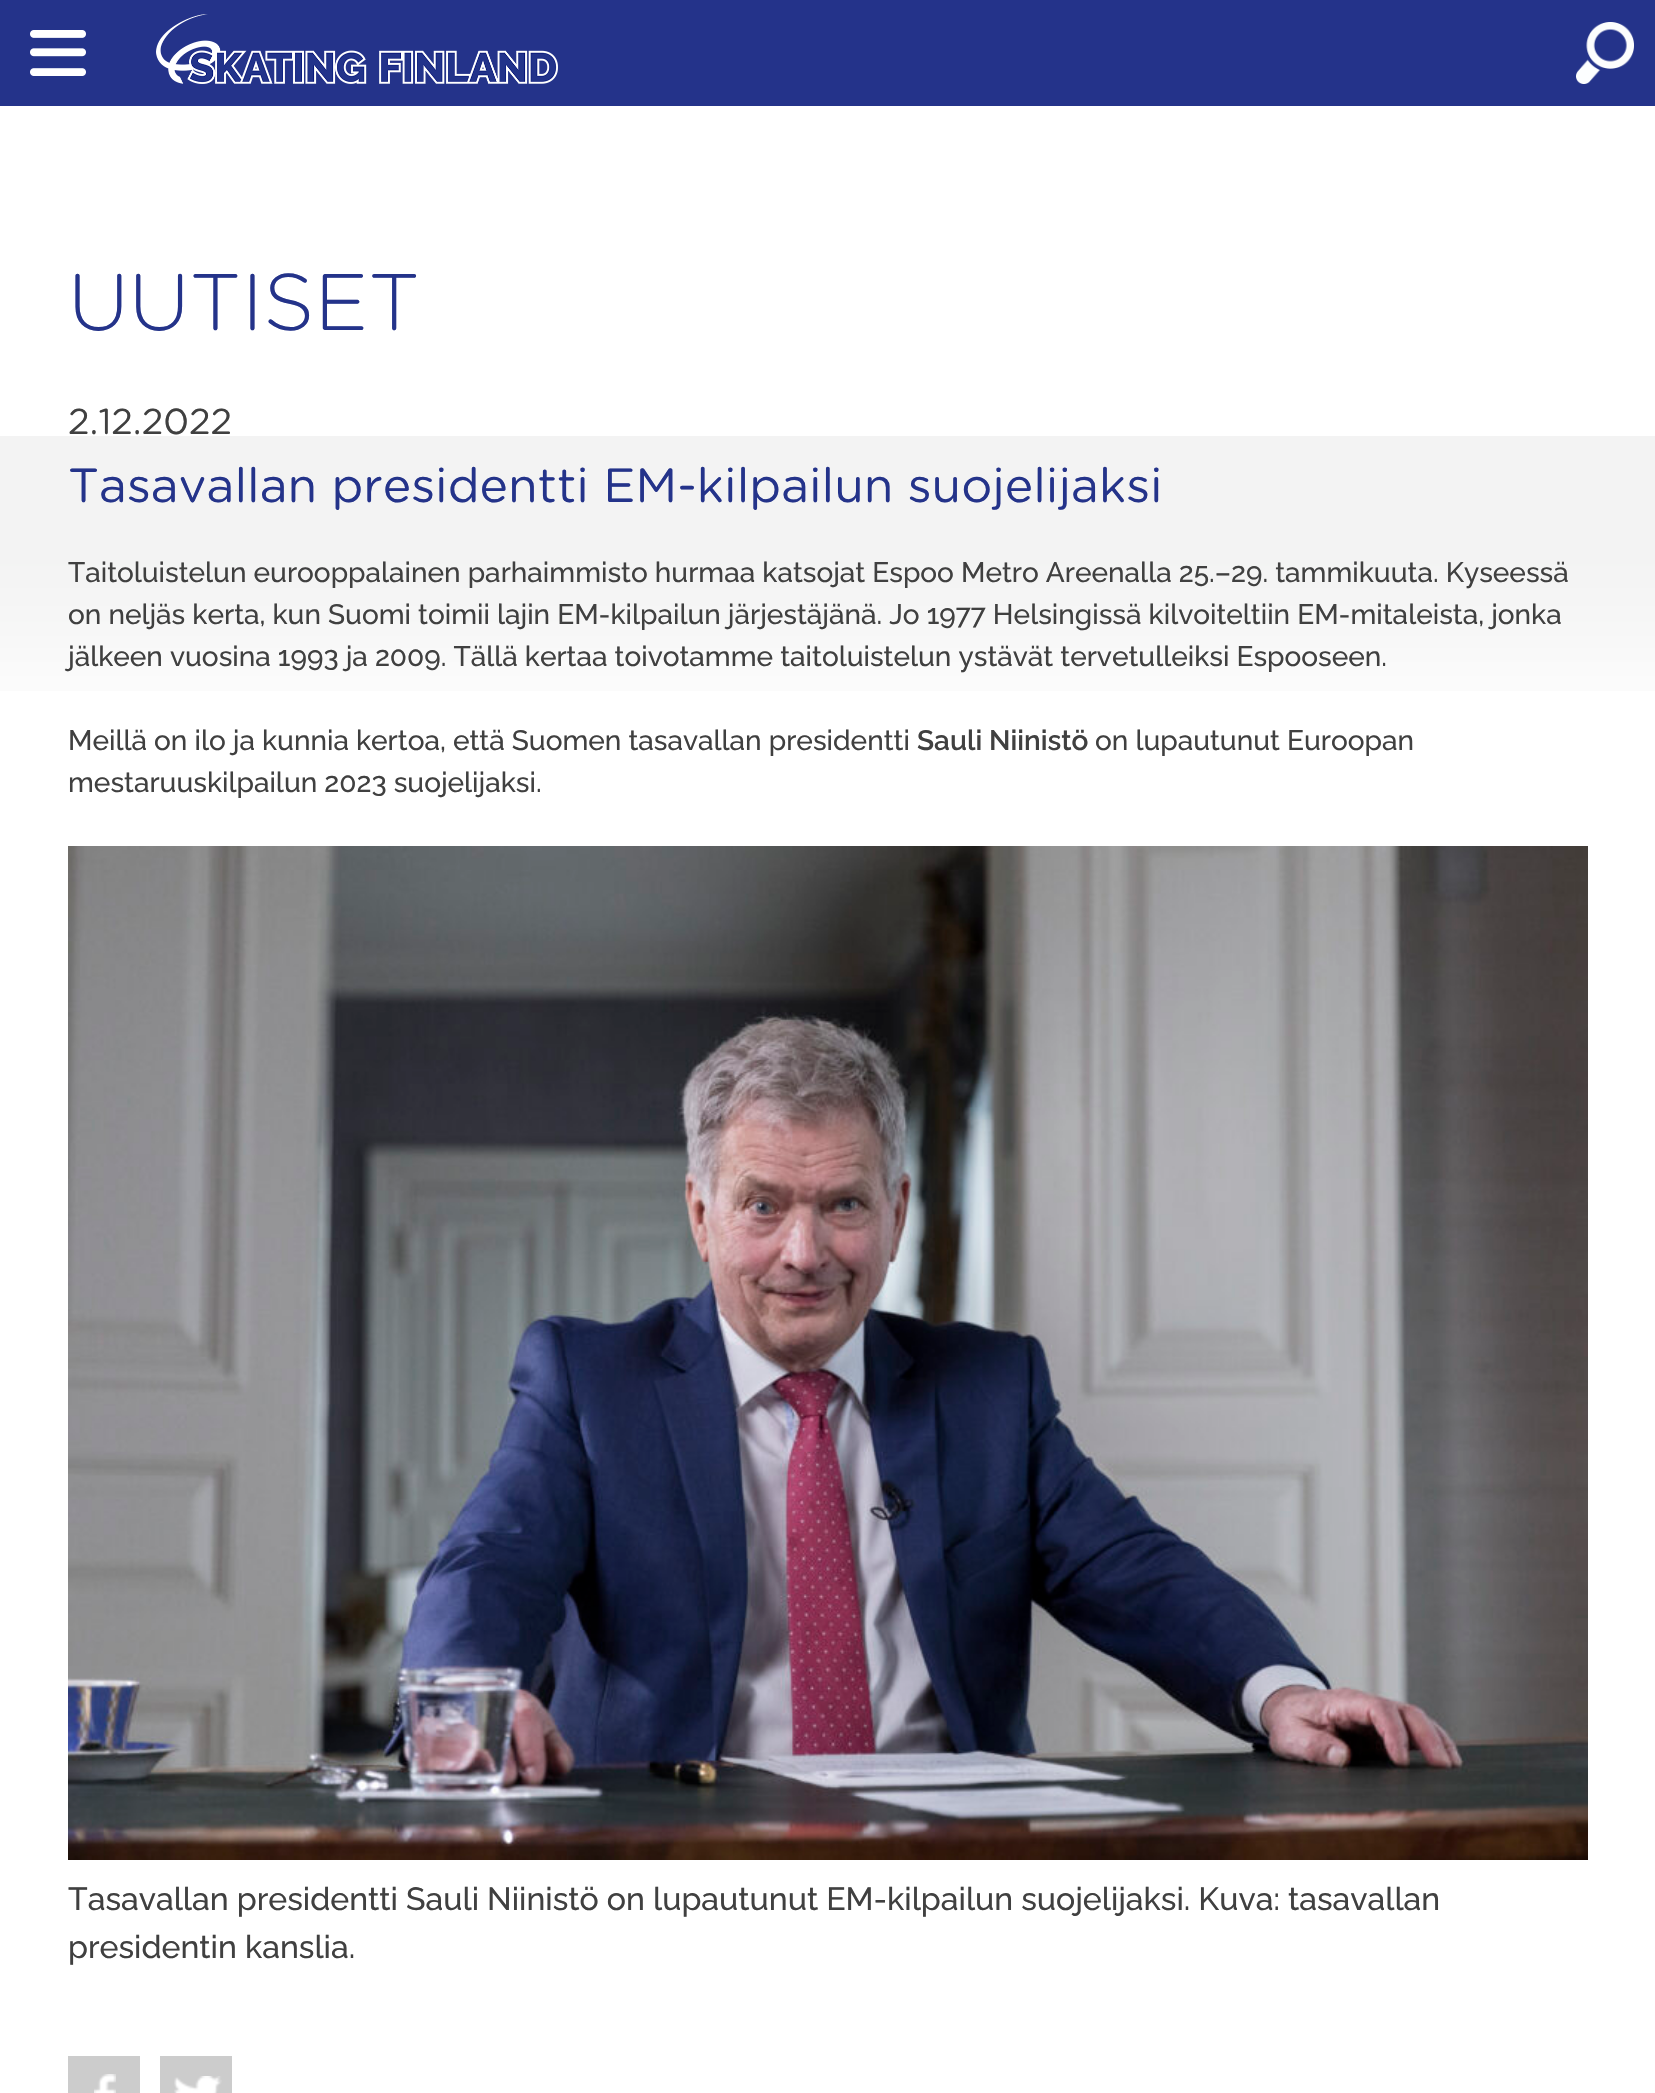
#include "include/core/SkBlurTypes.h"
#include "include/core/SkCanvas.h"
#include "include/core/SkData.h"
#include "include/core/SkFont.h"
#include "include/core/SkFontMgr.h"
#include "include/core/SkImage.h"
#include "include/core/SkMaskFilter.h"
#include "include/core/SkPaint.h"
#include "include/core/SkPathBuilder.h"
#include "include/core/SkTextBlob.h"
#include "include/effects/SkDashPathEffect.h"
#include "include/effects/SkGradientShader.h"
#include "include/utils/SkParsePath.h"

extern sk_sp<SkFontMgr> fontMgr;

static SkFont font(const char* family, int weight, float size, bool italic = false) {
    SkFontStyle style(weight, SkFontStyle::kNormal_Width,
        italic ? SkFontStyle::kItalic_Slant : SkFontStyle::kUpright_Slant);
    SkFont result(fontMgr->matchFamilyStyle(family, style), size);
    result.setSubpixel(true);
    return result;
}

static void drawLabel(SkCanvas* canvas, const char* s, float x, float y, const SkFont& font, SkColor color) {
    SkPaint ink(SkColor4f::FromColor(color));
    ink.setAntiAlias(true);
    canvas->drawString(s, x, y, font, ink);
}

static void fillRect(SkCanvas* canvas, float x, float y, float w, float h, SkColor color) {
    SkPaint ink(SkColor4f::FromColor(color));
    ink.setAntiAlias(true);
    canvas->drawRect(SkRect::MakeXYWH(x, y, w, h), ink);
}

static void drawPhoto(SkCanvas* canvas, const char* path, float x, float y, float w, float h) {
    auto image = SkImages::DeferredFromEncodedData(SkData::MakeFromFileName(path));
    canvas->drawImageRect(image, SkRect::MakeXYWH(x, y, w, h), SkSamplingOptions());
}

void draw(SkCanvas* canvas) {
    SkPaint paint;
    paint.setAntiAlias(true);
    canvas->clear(0xFFFFFFFF);
    drawPhoto(canvas, "assets/img1.png", 0, 436, 1655, 255);
    fillRect(canvas, 0, 0, 1655, 106, 0xFF24338A);
    drawPhoto(canvas, "assets/img2.png", 30, 30, 56, 46);
    drawPhoto(canvas, "assets/img3.png", 156, 14, 402, 70);
    drawPhoto(canvas, "assets/img4.png", 1576, 22, 58, 62);
    SkFont font1 = font("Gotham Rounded", 300, 80);
    drawLabel(canvas, "UUTISET", 68, 330, font1, 0xFF24338A);
    SkFont font2 = font("Gotham Rounded", 400, 36);
    drawLabel(canvas, "2.12.2022", 68, 434, font2, 0xFF404040);
    SkFont font3 = font("Gotham Rounded", 400, 48);
    drawLabel(canvas, "Tasavallan presidentti EM-kilpailun suojelijaksi", 68, 502, font3, 0xFF24338A);
    SkFont font4 = font("Raleway", 500, 28);
    drawLabel(canvas, "Taitoluistelun eurooppalainen parhaimmisto hurmaa katsojat Espoo Metro Areenalla 25.–29. tammikuuta. Kyseessä", 68, 582, font4, 0xFF404040);
    drawLabel(canvas, "on neljäs kerta, kun Suomi toimii lajin EM-kilpailun järjestäjänä. Jo 1977 Helsingissä kilvoiteltiin EM-mitaleista, jonka", 68, 624, font4, 0xFF404040);
    drawLabel(canvas, "jälkeen vuosina 1993 ja 2009. Tällä kertaa toivotamme taitoluistelun ystävät tervetulleiksi Espooseen.", 68, 666, font4, 0xFF404040);
    drawLabel(canvas, "Meillä on ilo ja kunnia kertoa, että Suomen tasavallan presidentti", 68, 750, font4, 0xFF404040);
    SkFont font5 = font("Raleway", 600, 28);
    drawLabel(canvas, "Sauli Niinistö", 917, 750, font5, 0xFF404040);
    drawLabel(canvas, "on lupautunut Euroopan", 1095, 750, font4, 0xFF404040);
    drawLabel(canvas, "mestaruuskilpailun 2023 suojelijaksi.", 68, 792, font4, 0xFF404040);
    drawPhoto(canvas, "assets/img5.png", 68, 846, 1520, 1014);
    SkFont font6 = font("Raleway", 500, 32);
    drawLabel(canvas, "Tasavallan presidentti Sauli Niinistö on lupautunut EM-kilpailun suojelijaksi. Kuva: tasavallan", 68, 1910, font6, 0xFF404040);
    drawLabel(canvas, "presidentin kanslia.", 68, 1958, font6, 0xFF404040);
    fillRect(canvas, 68, 2056, 72, 37, 0xFFCCCCCC);
    drawPhoto(canvas, "assets/img6.png", 94, 2074, 22, 19);
    fillRect(canvas, 160, 2056, 72, 37, 0xFFCCCCCC);
    drawPhoto(canvas, "assets/img7.png", 174, 2076, 48, 17);
}
